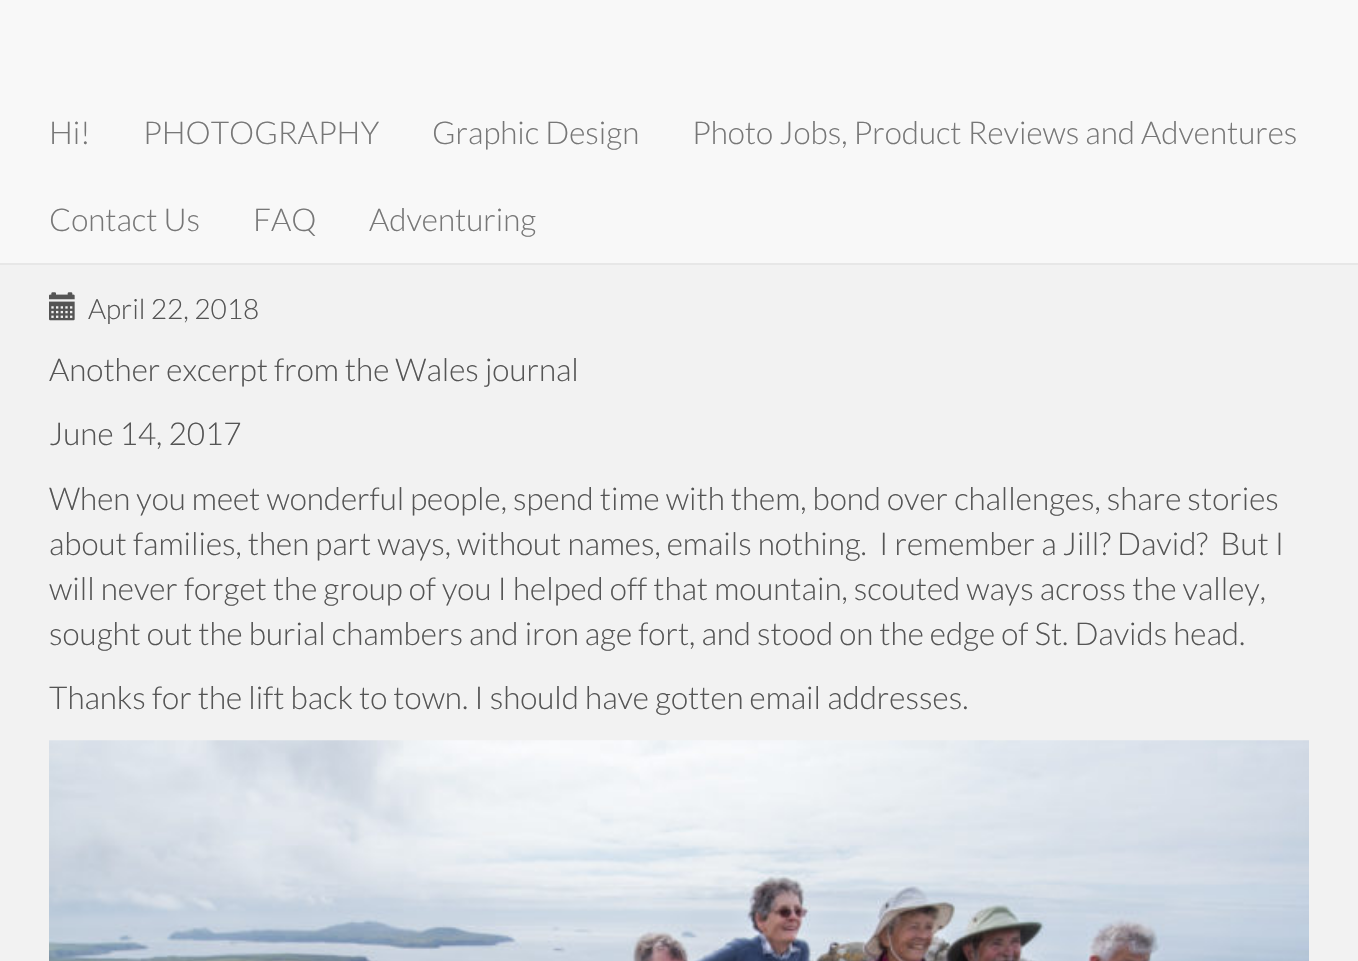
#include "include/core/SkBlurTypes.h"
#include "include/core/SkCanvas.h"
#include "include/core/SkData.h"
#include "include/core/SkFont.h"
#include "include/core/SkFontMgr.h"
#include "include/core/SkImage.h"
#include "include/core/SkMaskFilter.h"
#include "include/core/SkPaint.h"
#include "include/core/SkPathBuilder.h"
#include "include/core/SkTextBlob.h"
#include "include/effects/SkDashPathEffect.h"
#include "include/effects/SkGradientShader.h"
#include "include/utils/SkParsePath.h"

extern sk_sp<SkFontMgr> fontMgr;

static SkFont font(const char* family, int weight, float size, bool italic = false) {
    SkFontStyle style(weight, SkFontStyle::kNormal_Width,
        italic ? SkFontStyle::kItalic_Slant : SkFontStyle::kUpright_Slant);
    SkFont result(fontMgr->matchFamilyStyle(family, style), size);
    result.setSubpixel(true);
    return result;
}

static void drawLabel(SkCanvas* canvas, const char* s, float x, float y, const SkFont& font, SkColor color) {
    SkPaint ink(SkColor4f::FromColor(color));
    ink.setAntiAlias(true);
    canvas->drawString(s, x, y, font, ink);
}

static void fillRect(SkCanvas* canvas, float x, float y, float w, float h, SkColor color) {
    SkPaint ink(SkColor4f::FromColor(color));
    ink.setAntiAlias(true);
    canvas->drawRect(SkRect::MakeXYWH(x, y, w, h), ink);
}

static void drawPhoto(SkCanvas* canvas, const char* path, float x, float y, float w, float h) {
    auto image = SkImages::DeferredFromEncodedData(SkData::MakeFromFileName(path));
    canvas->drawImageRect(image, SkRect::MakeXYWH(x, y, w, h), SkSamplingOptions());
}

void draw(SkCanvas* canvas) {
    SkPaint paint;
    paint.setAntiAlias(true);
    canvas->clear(0xFFF2F2F2);
    fillRect(canvas, 0, 0, 1358, 263, 0xFFF8F8F8);
    fillRect(canvas, 0, 263, 1358, 2, 0xFFE7E7E7);
    SkFont font1 = font("Lato", 300, 31.5f);
    drawLabel(canvas, "Hi!", 49, 144, font1, 0xFF777777);
    drawLabel(canvas, "PHOTOGRAPHY", 143, 144, font1, 0xFF777777);
    drawLabel(canvas, "Graphic Design", 432, 144, font1, 0xFF777777);
    drawLabel(canvas, "Photo Jobs, Product Reviews and Adventures", 692, 144, font1, 0xFF777777);
    drawLabel(canvas, "Contact Us", 49, 231, font1, 0xFF777777);
    drawLabel(canvas, "FAQ", 253, 231, font1, 0xFF777777);
    drawLabel(canvas, "Adventuring", 369, 231, font1, 0xFF777777);
    drawPhoto(canvas, "assets/img1.png", 49, 292, 26, 29);
    SkFont font2 = font("Lato", 300, 28);
    drawLabel(canvas, "April 22, 2018", 88, 319, font2, 0xFF555555);
    drawLabel(canvas, "Another excerpt from the Wales journal", 49, 381, font1, 0xFF555555);
    drawLabel(canvas, "June 14, 2017", 49, 445, font1, 0xFF555555);
    drawLabel(canvas, "When you meet wonderful people, spend time with them, bond over challenges, share stories", 49, 510, font1, 0xFF555555);
    drawLabel(canvas, "about families, then part ways, without names, emails nothing.  I remember a Jill? David?  But I", 49, 555, font1, 0xFF555555);
    drawLabel(canvas, "will never forget the group of you I helped off that mountain, scouted ways across the valley,", 49, 600, font1, 0xFF555555);
    drawLabel(canvas, "sought out the burial chambers and iron age fort, and stood on the edge of St. Davids head.", 49, 645, font1, 0xFF555555);
    drawLabel(canvas, "Thanks for the lift back to town. I should have gotten email addresses.", 49, 709, font1, 0xFF555555);
    drawPhoto(canvas, "assets/img2.png", 49, 740, 1260, 221);
}
